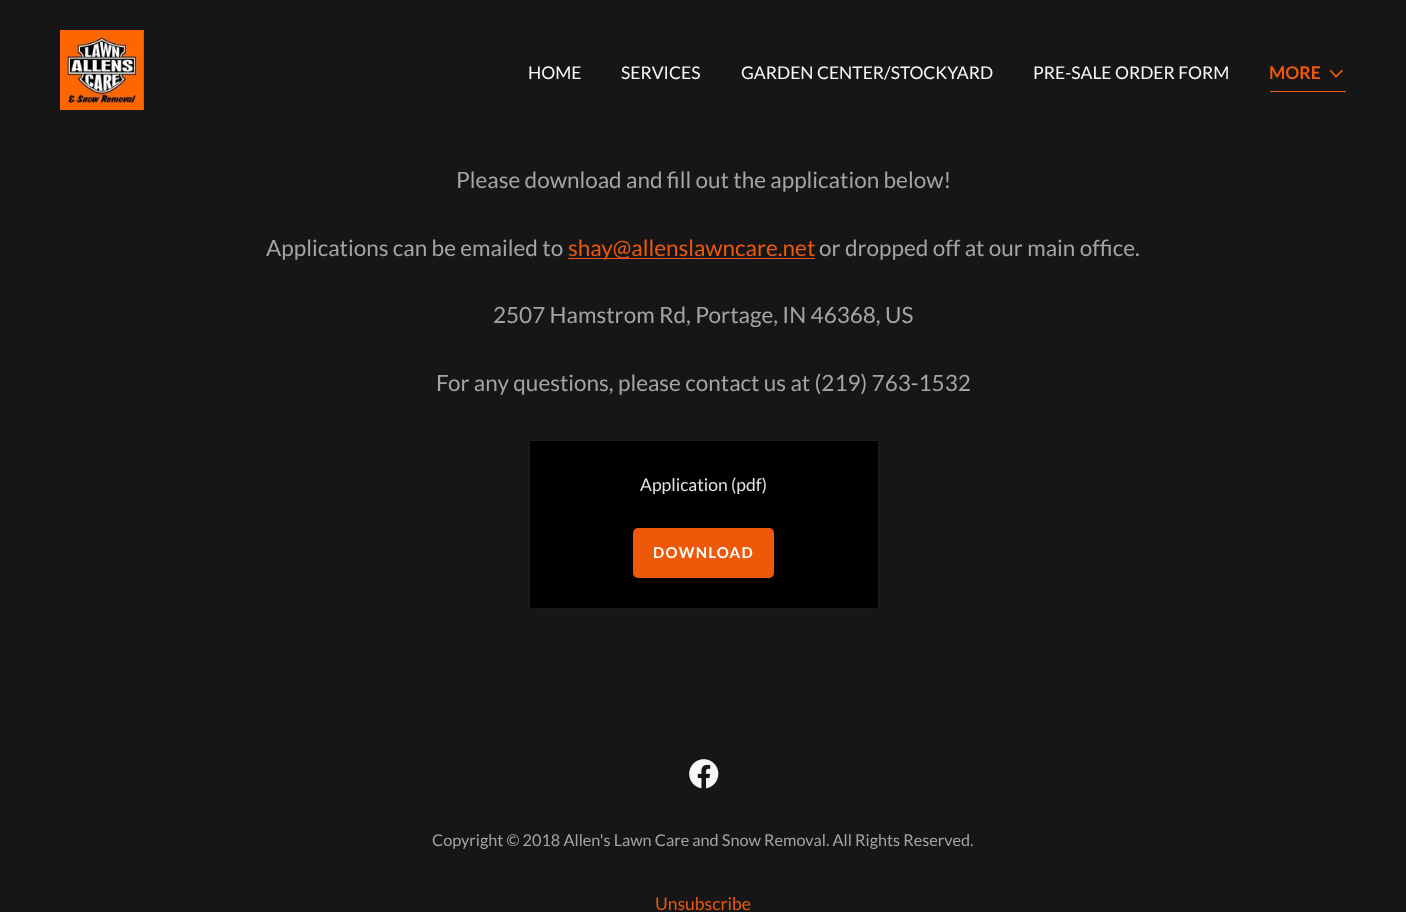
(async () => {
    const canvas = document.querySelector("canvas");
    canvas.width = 1406;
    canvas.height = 912;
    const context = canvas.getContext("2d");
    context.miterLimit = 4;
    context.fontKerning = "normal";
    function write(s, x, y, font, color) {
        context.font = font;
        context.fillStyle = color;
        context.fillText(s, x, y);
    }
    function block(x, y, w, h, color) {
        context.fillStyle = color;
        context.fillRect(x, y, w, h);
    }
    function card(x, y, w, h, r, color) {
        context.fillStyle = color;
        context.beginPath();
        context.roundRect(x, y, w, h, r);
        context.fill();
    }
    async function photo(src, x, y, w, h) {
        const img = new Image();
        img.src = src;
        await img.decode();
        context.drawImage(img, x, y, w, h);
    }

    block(0, 0, 1406, 912, "rgb(22, 22, 22)");
    await photo("media/1.png", 60, 30, 84, 80);
    write("HOME", 528, 79, "17.5px Lato", "rgb(247, 247, 247)");
    write("SERVICES", 621, 79, "17.5px Lato", "rgb(247, 247, 247)");
    write("GARDEN CENTER/STOCKYARD", 741, 79, "17.5px Lato", "rgb(247, 247, 247)");
    write("PRE-SALE ORDER FORM", 1033, 79, "17.5px Lato", "rgb(247, 247, 247)");
    block(1270, 91, 76, 1, "rgb(237, 89, 9)");
    write("MORE", 1269, 79, "bold 17.5px Lato", "rgb(237, 89, 9)");
    await photo("media/2.png", 1329, 69, 14, 9);
    write("Please download and fill out the application below!", 456, 188, "22.5px Lato", "rgb(164, 164, 164)");
    write("Applications can be emailed to", 266, 256, "22.5px Lato", "rgb(164, 164, 164)");
    block(568, 258, 247, 1, "rgb(237, 89, 9)");
    write("shay@allenslawncare.net", 568, 256, "22.5px Lato", "rgb(237, 89, 9)");
    write("or dropped off at our main office.", 819, 256, "22.5px Lato", "rgb(164, 164, 164)");
    write("2507 Hamstrom Rd, Portage, IN 46368, US", 493, 323, "22.5px Lato", "rgb(164, 164, 164)");
    write("For any questions, please contact us at (219) 763-1532", 436, 391, "22.5px Lato", "rgb(164, 164, 164)");
    context.fillStyle = "rgb(0, 0, 0)";
    context.beginPath();
    context.rect(529.5, 440.5, 349, 168);
    context.fill();
    context.strokeStyle = "rgb(27, 27, 27)";
    context.stroke();
    write("Application (pdf)", 640, 491, "17.5px Lato", "rgb(226, 226, 226)");
    card(633, 528, 141, 50, 5, "rgb(237, 89, 9)");
    context.letterSpacing = "1.25px";
    write("DOWNLOAD", 653, 558, "bold 15px Lato", "rgb(255, 255, 255)");
    await photo("media/3.png", 689, 759, 30, 30);
    context.letterSpacing = "0px";
    write("Copyright © 2018 Allen's Lawn Care and Snow Removal. All Rights Reserved.", 432, 846, "16.25px Lato", "rgb(164, 164, 164)");
    write("Unsubscribe", 655, 910, "17.5px Lato", "rgb(237, 89, 9)");
})();
